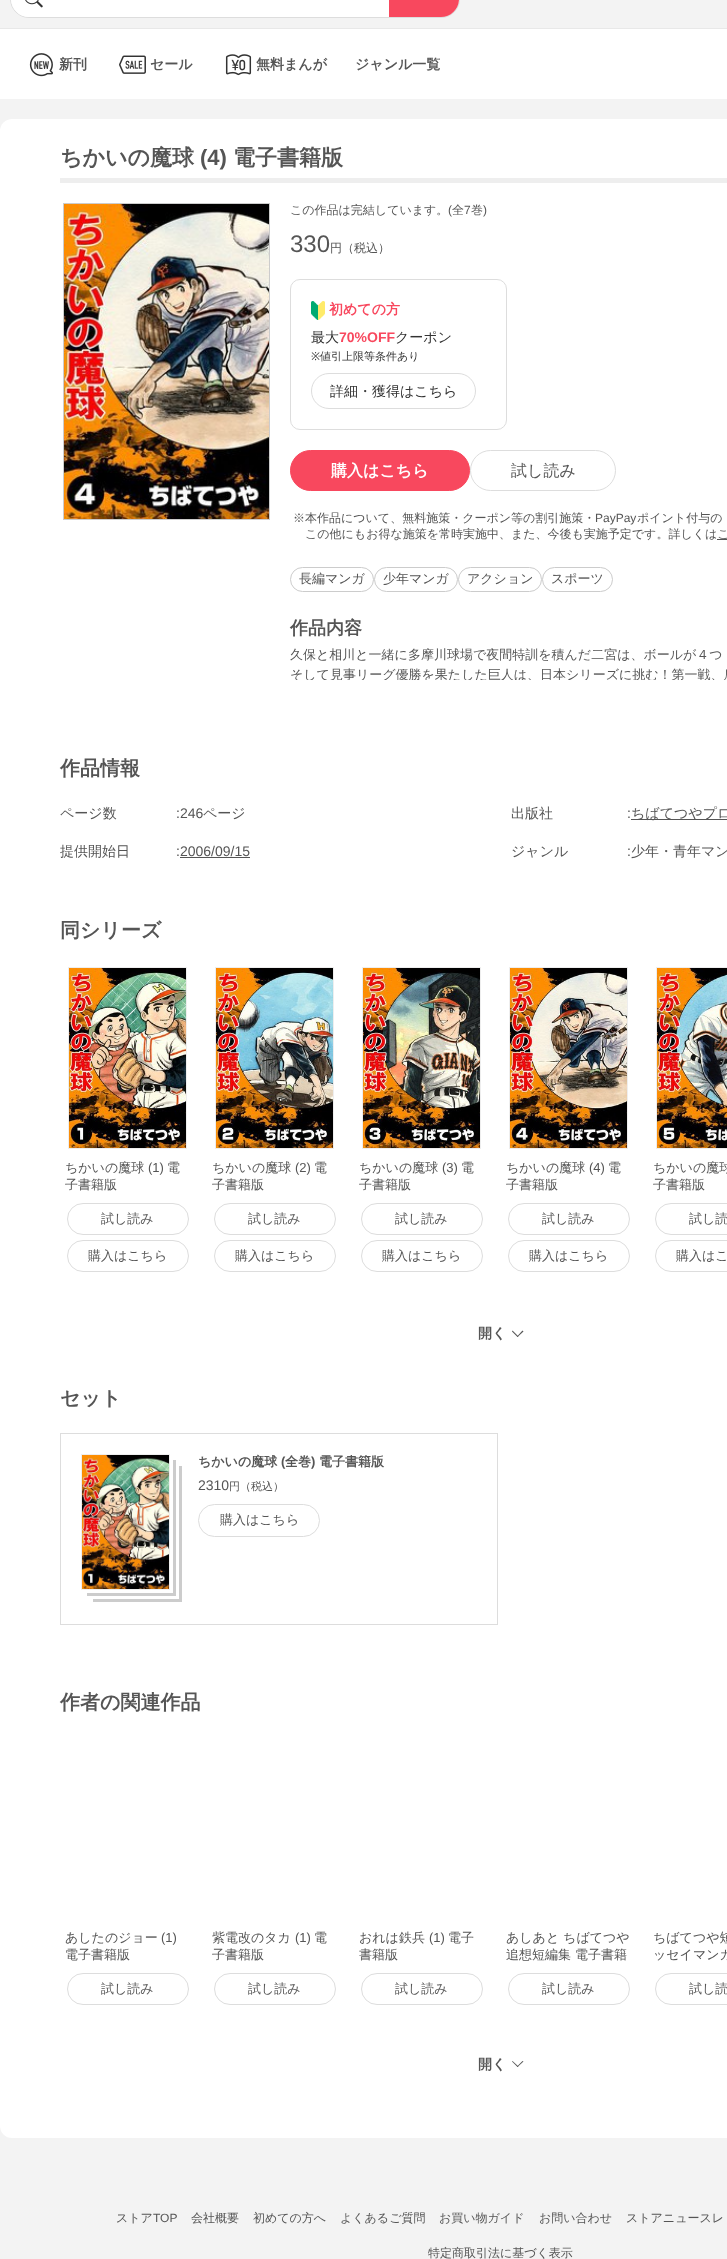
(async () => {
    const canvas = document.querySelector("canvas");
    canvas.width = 727;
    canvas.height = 2259;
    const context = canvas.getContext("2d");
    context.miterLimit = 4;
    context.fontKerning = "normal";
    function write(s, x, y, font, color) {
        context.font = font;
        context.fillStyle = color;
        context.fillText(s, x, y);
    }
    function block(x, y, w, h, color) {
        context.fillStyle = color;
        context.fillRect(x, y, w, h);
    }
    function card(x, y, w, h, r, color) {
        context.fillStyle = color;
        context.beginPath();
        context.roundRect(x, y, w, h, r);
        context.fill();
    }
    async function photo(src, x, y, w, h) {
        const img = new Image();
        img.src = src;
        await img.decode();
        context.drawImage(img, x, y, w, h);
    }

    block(0, 0, 727, 2259, "rgb(255, 255, 255)");
    block(0, 0, 727, 28, "rgb(243, 243, 243)");
    block(0, 28, 727, 1, "rgb(232, 232, 232)");
    context.beginPath();
    context.roundRect(10.5, -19.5, 449, 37, 18.5);
    context.strokeStyle = "rgb(221, 221, 221)";
    context.stroke();
    context.fillStyle = "rgb(255, 255, 255)";
    context.beginPath();
    context.moveTo(29, -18);
    context.lineTo(401, -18);
    context.lineTo(401, 17);
    context.lineTo(29, 17);
    context.bezierCurveTo(19, 17, 11, 9, 11, -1);
    context.lineTo(11, 0);
    context.bezierCurveTo(11, -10, 19, -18, 29, -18);
    context.closePath();
    context.fill();
    context.fillStyle = "rgb(248, 72, 94)";
    context.beginPath();
    context.moveTo(389, -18);
    context.lineTo(441, -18);
    context.bezierCurveTo(451, -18, 459, -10, 459, 0);
    context.lineTo(459, -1);
    context.bezierCurveTo(459, 9, 451, 17, 441, 17);
    context.lineTo(389, 17);
    context.closePath();
    context.fill();
    await photo("media/1.png", 25, 0, 18, 8);
    await photo("media/2.png", 29, 53, 24, 24);
    write("新刊", 59, 69, "bold 14px WenQuanYi Zen Hei", "rgb(85, 85, 85)");
    await photo("media/3.png", 119, 55, 27, 19);
    write("セール", 150, 69, "bold 14px WenQuanYi Zen Hei", "rgb(85, 85, 85)");
    await photo("media/4.png", 225, 54, 27, 22);
    write("無料まんが", 256, 69, "bold 14px WenQuanYi Zen Hei", "rgb(85, 85, 85)");
    write("ジャンル一覧", 355, 69, "bold 14px WenQuanYi Zen Hei", "rgb(85, 85, 85)");
    block(0, 99, 727, 2160, "rgb(243, 243, 243)");
    card(0, 119, 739, 2019, 12, "rgb(255, 255, 255)");
    block(60, 178, 667, 5, "rgb(238, 238, 238)");
    write("ちかいの魔球", 60, 165, "bold 22px WenQuanYi Zen Hei", "rgb(85, 85, 85)");
    write("(4)", 200, 165, "bold 22px Liberation Sans", "rgb(85, 85, 85)");
    write("電子書籍版", 233, 165, "bold 22px WenQuanYi Zen Hei", "rgb(85, 85, 85)");
    context.strokeStyle = "rgb(204, 204, 204)";
    context.strokeRect(63.5, 203.5, 206, 316);
    await photo("media/5.png", 64, 204, 205, 315);
    write("この作品は完結しています。", 290, 214, "500 12px WenQuanYi Zen Hei", "rgb(85, 85, 85)");
    write("(", 448, 214, "12px Liberation Sans", "rgb(85, 85, 85)");
    write("全", 452, 214, "500 12px WenQuanYi Zen Hei", "rgb(85, 85, 85)");
    write("7", 464, 214, "12px Liberation Sans", "rgb(85, 85, 85)");
    write("巻", 471, 214, "500 12px WenQuanYi Zen Hei", "rgb(85, 85, 85)");
    write(")", 483, 214, "12px Liberation Sans", "rgb(85, 85, 85)");
    write("330", 290, 252, "24px Liberation Sans", "rgb(85, 85, 85)");
    write("円（税込）", 330, 252, "500 12px WenQuanYi Zen Hei", "rgb(85, 85, 85)");
    context.beginPath();
    context.roundRect(290.5, 279.5, 216, 150, 9.5);
    context.strokeStyle = "rgb(221, 221, 221)";
    context.stroke();
    await photo("media/6.png", 311, 301, 14, 19);
    write("初めての方", 329, 314, "bold 14px WenQuanYi Zen Hei", "rgb(248, 72, 94)");
    write("最大", 311, 342, "500 14px WenQuanYi Zen Hei", "rgb(51, 51, 51)");
    write("70%OFF", 339, 342, "bold 14px Liberation Sans", "rgb(248, 72, 94)");
    write("クーポン", 395, 342, "500 14px WenQuanYi Zen Hei", "rgb(51, 51, 51)");
    write("※", 311, 360, "11px Noto Sans", "rgb(51, 51, 51)");
    write("値引上限等条件あり", 320, 360, "500 11px WenQuanYi Zen Hei", "rgb(51, 51, 51)");
    context.beginPath();
    context.roundRect(311.5, 373.5, 164, 35, 17.5);
    context.stroke();
    write("詳細・獲得はこちら", 330, 396, "500 14px WenQuanYi Zen Hei", "rgb(51, 51, 51)");
    context.fillStyle = "rgb(248, 72, 94)";
    context.beginPath();
    context.roundRect(290.5, 450.5, 179, 40, 20);
    context.fill();
    context.strokeStyle = "rgb(248, 72, 94)";
    context.stroke();
    write("購入はこちら", 331, 476, "bold 16px WenQuanYi Zen Hei", "rgb(255, 255, 255)");
    context.beginPath();
    context.roundRect(470.5, 450.5, 145, 40, 20);
    context.strokeStyle = "rgb(221, 221, 221)";
    context.stroke();
    write("試し読み", 511, 476, "500 16px WenQuanYi Zen Hei", "rgb(85, 85, 85)");
    write("※本作品について、無料施策・クーポン等の割引施策・", 293, 522, "500 12px WenQuanYi Zen Hei", "rgb(85, 85, 85)");
    write("PayPay", 595, 522, "12px Liberation Sans", "rgb(85, 85, 85)");
    write("ポイント付与の", 637, 522, "500 12px WenQuanYi Zen Hei", "rgb(85, 85, 85)");
    write("この他にもお得な施策を常時実施中、また、今後も実施予定です。詳しくはこ", 305, 538, "500 12px WenQuanYi Zen Hei", "rgb(85, 85, 85)");
    block(717, 539, 10, 1, "rgb(85, 85, 85)");
    context.beginPath();
    context.roundRect(290.5, 567.5, 83, 24, 12);
    context.strokeStyle = "rgb(204, 204, 204)";
    context.stroke();
    write("長編マンガ", 299, 583, "500 13px WenQuanYi Zen Hei", "rgb(85, 85, 85)");
    context.beginPath();
    context.roundRect(374.5, 567.5, 83, 24, 12);
    context.stroke();
    write("少年マンガ", 383, 583, "500 13px WenQuanYi Zen Hei", "rgb(85, 85, 85)");
    context.beginPath();
    context.roundRect(458.5, 567.5, 83, 24, 12);
    context.stroke();
    write("アクション", 467, 583, "500 13px WenQuanYi Zen Hei", "rgb(85, 85, 85)");
    context.beginPath();
    context.roundRect(542.5, 567.5, 70, 24, 12);
    context.stroke();
    write("スポーツ", 551, 583, "500 13px WenQuanYi Zen Hei", "rgb(85, 85, 85)");
    write("作品内容", 290, 634, "bold 18px WenQuanYi Zen Hei", "rgb(85, 85, 85)");
    write("久保と相川と一緒に多摩川球場で夜間特訓を積んだ二宮は、ボールが４つ", 290, 659, "500 13px WenQuanYi Zen Hei", "rgb(85, 85, 85)");
    write("そして見事リーグ優勝を果たした巨人は、日本シリーズに挑む！第一戦、肩", 290, 679, "500 13px WenQuanYi Zen Hei", "rgb(85, 85, 85)");
    block(296, 680, 429, 2, "rgb(255, 255, 255)");
    write("作品情報", 60, 775, "bold 20px WenQuanYi Zen Hei", "rgb(85, 85, 85)");
    write("ページ数", 60, 818, "500 14px WenQuanYi Zen Hei", "rgb(85, 85, 85)");
    write(":246", 176, 818, "14px Liberation Sans", "rgb(85, 85, 85)");
    write("ページ", 203, 818, "500 14px WenQuanYi Zen Hei", "rgb(85, 85, 85)");
    write("出版社", 511, 818, "500 14px WenQuanYi Zen Hei", "rgb(85, 85, 85)");
    write(":", 627, 818, "14px Liberation Sans", "rgb(85, 85, 85)");
    block(631, 819, 96, 1, "rgb(85, 85, 85)");
    write("ちばてつやプロ", 631, 818, "500 14px WenQuanYi Zen Hei", "rgb(85, 85, 85)");
    write("提供開始日", 60, 856, "500 14px WenQuanYi Zen Hei", "rgb(85, 85, 85)");
    write(":2006/09/15", 176, 856, "14px Liberation Sans", "rgb(85, 85, 85)");
    block(180, 857, 70, 1, "rgb(85, 85, 85)");
    write("ジャンル", 511, 856, "500 14px WenQuanYi Zen Hei", "rgb(85, 85, 85)");
    write(":", 627, 856, "14px Liberation Sans", "rgb(85, 85, 85)");
    write("少年・青年マン", 631, 856, "500 14px WenQuanYi Zen Hei", "rgb(85, 85, 85)");
    write("同シリーズ", 60, 937, "bold 20px WenQuanYi Zen Hei", "rgb(85, 85, 85)");
    context.strokeStyle = "rgb(238, 238, 238)";
    context.strokeRect(68.5, 967.5, 118, 181);
    await photo("media/7.png", 69, 968, 117, 180);
    write("ちかいの魔球", 65, 1172, "500 13px WenQuanYi Zen Hei", "rgb(85, 85, 85)");
    write("(1)", 148, 1172, "13px Liberation Sans", "rgb(85, 85, 85)");
    write("電", 167, 1172, "500 13px WenQuanYi Zen Hei", "rgb(85, 85, 85)");
    write("子書籍版", 65, 1189, "500 13px WenQuanYi Zen Hei", "rgb(85, 85, 85)");
    context.beginPath();
    context.roundRect(67.5, 1203.5, 121, 31, 15.5);
    context.strokeStyle = "rgb(221, 221, 221)";
    context.stroke();
    write("試し読み", 101, 1223, "500 13px WenQuanYi Zen Hei", "rgb(85, 85, 85)");
    context.beginPath();
    context.roundRect(67.5, 1240.5, 121, 31, 15.5);
    context.stroke();
    write("購入はこちら", 88, 1260, "500 13px WenQuanYi Zen Hei", "rgb(85, 85, 85)");
    context.strokeStyle = "rgb(238, 238, 238)";
    context.strokeRect(215.5, 967.5, 118, 181);
    await photo("media/8.png", 216, 968, 117, 180);
    write("ちかいの魔球", 212, 1172, "500 13px WenQuanYi Zen Hei", "rgb(85, 85, 85)");
    write("(2)", 295, 1172, "13px Liberation Sans", "rgb(85, 85, 85)");
    write("電", 314, 1172, "500 13px WenQuanYi Zen Hei", "rgb(85, 85, 85)");
    write("子書籍版", 212, 1189, "500 13px WenQuanYi Zen Hei", "rgb(85, 85, 85)");
    context.beginPath();
    context.roundRect(214.5, 1203.5, 121, 31, 15.5);
    context.strokeStyle = "rgb(221, 221, 221)";
    context.stroke();
    write("試し読み", 248, 1223, "500 13px WenQuanYi Zen Hei", "rgb(85, 85, 85)");
    context.beginPath();
    context.roundRect(214.5, 1240.5, 121, 31, 15.5);
    context.stroke();
    write("購入はこちら", 235, 1260, "500 13px WenQuanYi Zen Hei", "rgb(85, 85, 85)");
    context.strokeStyle = "rgb(238, 238, 238)";
    context.strokeRect(362.5, 967.5, 118, 181);
    await photo("media/9.png", 363, 968, 117, 180);
    write("ちかいの魔球", 359, 1172, "500 13px WenQuanYi Zen Hei", "rgb(85, 85, 85)");
    write("(3)", 442, 1172, "13px Liberation Sans", "rgb(85, 85, 85)");
    write("電", 461, 1172, "500 13px WenQuanYi Zen Hei", "rgb(85, 85, 85)");
    write("子書籍版", 359, 1189, "500 13px WenQuanYi Zen Hei", "rgb(85, 85, 85)");
    context.beginPath();
    context.roundRect(361.5, 1203.5, 121, 31, 15.5);
    context.strokeStyle = "rgb(221, 221, 221)";
    context.stroke();
    write("試し読み", 395, 1223, "500 13px WenQuanYi Zen Hei", "rgb(85, 85, 85)");
    context.beginPath();
    context.roundRect(361.5, 1240.5, 121, 31, 15.5);
    context.stroke();
    write("購入はこちら", 382, 1260, "500 13px WenQuanYi Zen Hei", "rgb(85, 85, 85)");
    context.strokeStyle = "rgb(238, 238, 238)";
    context.strokeRect(509.5, 967.5, 118, 181);
    await photo("media/10.png", 510, 968, 117, 180);
    write("ちかいの魔球", 506, 1172, "500 13px WenQuanYi Zen Hei", "rgb(85, 85, 85)");
    write("(4)", 589, 1172, "13px Liberation Sans", "rgb(85, 85, 85)");
    write("電", 608, 1172, "500 13px WenQuanYi Zen Hei", "rgb(85, 85, 85)");
    write("子書籍版", 506, 1189, "500 13px WenQuanYi Zen Hei", "rgb(85, 85, 85)");
    context.beginPath();
    context.roundRect(508.5, 1203.5, 121, 31, 15.5);
    context.strokeStyle = "rgb(221, 221, 221)";
    context.stroke();
    write("試し読み", 542, 1223, "500 13px WenQuanYi Zen Hei", "rgb(85, 85, 85)");
    context.beginPath();
    context.roundRect(508.5, 1240.5, 121, 31, 15.5);
    context.stroke();
    write("購入はこちら", 529, 1260, "500 13px WenQuanYi Zen Hei", "rgb(85, 85, 85)");
    context.strokeStyle = "rgb(238, 238, 238)";
    context.strokeRect(656.5, 967.5, 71, 181);
    await photo("media/11.png", 657, 968, 70, 180);
    write("ちかいの魔球", 653, 1172, "500 13px WenQuanYi Zen Hei", "rgb(85, 85, 85)");
    write("子書籍版", 653, 1189, "500 13px WenQuanYi Zen Hei", "rgb(85, 85, 85)");
    context.beginPath();
    context.roundRect(655.5, 1203.5, 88, 31, 15.5);
    context.strokeStyle = "rgb(221, 221, 221)";
    context.stroke();
    write("試し読", 689, 1223, "500 13px WenQuanYi Zen Hei", "rgb(85, 85, 85)");
    context.beginPath();
    context.roundRect(655.5, 1240.5, 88, 31, 15.5);
    context.stroke();
    write("購入はこ", 676, 1260, "500 13px WenQuanYi Zen Hei", "rgb(85, 85, 85)");
    write("開く", 478, 1338, "bold 14px WenQuanYi Zen Hei", "rgb(85, 85, 85)");
    context.beginPath();
    context.moveTo(523.5, 1331.5);
    context.lineTo(517.5, 1337);
    context.lineTo(517, 1336.5);
    context.lineTo(522.5, 1330.5);
    context.closePath();
    context.fill();
    context.beginPath();
    context.moveTo(518.5, 1336.5);
    context.lineTo(517.5, 1337);
    context.lineTo(512, 1331.5);
    context.lineTo(512.5, 1330.5);
    context.closePath();
    context.fill();
    write("セット", 60, 1405, "bold 20px WenQuanYi Zen Hei", "rgb(85, 85, 85)");
    context.strokeRect(60.5, 1433.5, 437, 191);
    context.fillStyle = "rgb(204, 204, 204)";
    context.beginPath();
    context.moveTo(93, 1590);
    context.lineTo(93, 1602);
    context.lineTo(182, 1602);
    context.lineTo(182, 1466);
    context.lineTo(170, 1466);
    context.lineTo(170, 1590);
    context.closePath();
    context.fill();
    context.fillStyle = "rgb(255, 255, 255)";
    context.beginPath();
    context.moveTo(90, 1590);
    context.lineTo(90, 1599);
    context.lineTo(179, 1599);
    context.lineTo(179, 1463);
    context.lineTo(170, 1463);
    context.lineTo(170, 1590);
    context.closePath();
    context.fill();
    context.fillStyle = "rgb(204, 204, 204)";
    context.beginPath();
    context.moveTo(87, 1590);
    context.lineTo(87, 1596);
    context.lineTo(176, 1596);
    context.lineTo(176, 1460);
    context.lineTo(170, 1460);
    context.lineTo(170, 1590);
    context.closePath();
    context.fill();
    context.fillStyle = "rgb(255, 255, 255)";
    context.beginPath();
    context.moveTo(84, 1590);
    context.lineTo(84, 1593);
    context.lineTo(173, 1593);
    context.lineTo(173, 1457);
    context.lineTo(170, 1457);
    context.lineTo(170, 1590);
    context.closePath();
    context.fill();
    context.strokeStyle = "rgb(238, 238, 238)";
    context.strokeRect(81.5, 1454.5, 88, 135);
    await photo("media/12.png", 82, 1455, 87, 134);
    write("ちかいの魔球", 198, 1466, "bold 13px WenQuanYi Zen Hei", "rgb(85, 85, 85)");
    write("(", 281, 1466, "bold 13px Liberation Sans", "rgb(85, 85, 85)");
    write("全巻", 285, 1466, "bold 13px WenQuanYi Zen Hei", "rgb(85, 85, 85)");
    write(")", 311, 1466, "bold 13px Liberation Sans", "rgb(85, 85, 85)");
    write("電子書籍版", 319, 1466, "bold 13px WenQuanYi Zen Hei", "rgb(85, 85, 85)");
    write("2310", 198, 1490, "14px Liberation Sans", "rgb(85, 85, 85)");
    write("円（税込）", 229, 1490, "500 11px WenQuanYi Zen Hei", "rgb(85, 85, 85)");
    context.beginPath();
    context.roundRect(198.5, 1504.5, 121, 32, 16);
    context.strokeStyle = "rgb(221, 221, 221)";
    context.stroke();
    write("購入はこちら", 220, 1524, "500 13px WenQuanYi Zen Hei", "rgb(85, 85, 85)");
    write("作者の関連作品", 60, 1709, "bold 20px WenQuanYi Zen Hei", "rgb(85, 85, 85)");
    write("あしたのジョー", 65, 1942, "500 13px WenQuanYi Zen Hei", "rgb(85, 85, 85)");
    write("(1)", 161, 1942, "13px Liberation Sans", "rgb(85, 85, 85)");
    write("電子書籍版", 65, 1959, "500 13px WenQuanYi Zen Hei", "rgb(85, 85, 85)");
    context.beginPath();
    context.roundRect(67.5, 1973.5, 121, 31, 15.5);
    context.stroke();
    write("試し読み", 101, 1993, "500 13px WenQuanYi Zen Hei", "rgb(85, 85, 85)");
    write("紫電改のタカ", 212, 1942, "500 13px WenQuanYi Zen Hei", "rgb(85, 85, 85)");
    write("(1)", 295, 1942, "13px Liberation Sans", "rgb(85, 85, 85)");
    write("電", 314, 1942, "500 13px WenQuanYi Zen Hei", "rgb(85, 85, 85)");
    write("子書籍版", 212, 1959, "500 13px WenQuanYi Zen Hei", "rgb(85, 85, 85)");
    context.beginPath();
    context.roundRect(214.5, 1973.5, 121, 31, 15.5);
    context.stroke();
    write("試し読み", 248, 1993, "500 13px WenQuanYi Zen Hei", "rgb(85, 85, 85)");
    write("おれは鉄兵", 359, 1942, "500 13px WenQuanYi Zen Hei", "rgb(85, 85, 85)");
    write("(1)", 429, 1942, "13px Liberation Sans", "rgb(85, 85, 85)");
    write("電子", 448, 1942, "500 13px WenQuanYi Zen Hei", "rgb(85, 85, 85)");
    write("書籍版", 359, 1959, "500 13px WenQuanYi Zen Hei", "rgb(85, 85, 85)");
    context.beginPath();
    context.roundRect(361.5, 1973.5, 121, 31, 15.5);
    context.stroke();
    write("試し読み", 395, 1993, "500 13px WenQuanYi Zen Hei", "rgb(85, 85, 85)");
    write("あしあと ちばてつや", 506, 1942, "500 13px WenQuanYi Zen Hei", "rgb(85, 85, 85)");
    write("追想短編集 電子書籍", 506, 1959, "500 13px WenQuanYi Zen Hei", "rgb(85, 85, 85)");
    context.beginPath();
    context.roundRect(508.5, 1973.5, 121, 31, 15.5);
    context.stroke();
    write("試し読み", 542, 1993, "500 13px WenQuanYi Zen Hei", "rgb(85, 85, 85)");
    write("ちばてつや短", 653, 1942, "500 13px WenQuanYi Zen Hei", "rgb(85, 85, 85)");
    write("ッセイマンガ", 653, 1959, "500 13px WenQuanYi Zen Hei", "rgb(85, 85, 85)");
    context.beginPath();
    context.roundRect(655.5, 1973.5, 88, 31, 15.5);
    context.stroke();
    write("試し読", 689, 1993, "500 13px WenQuanYi Zen Hei", "rgb(85, 85, 85)");
    write("開く", 478, 2069, "bold 14px WenQuanYi Zen Hei", "rgb(85, 85, 85)");
    context.beginPath();
    context.moveTo(523.5, 2061.5);
    context.lineTo(517.5, 2067);
    context.lineTo(517, 2066.5);
    context.lineTo(522.5, 2061);
    context.closePath();
    context.fill();
    context.beginPath();
    context.moveTo(518.5, 2066.5);
    context.lineTo(517.5, 2067);
    context.lineTo(512, 2061.5);
    context.lineTo(512.5, 2061);
    context.closePath();
    context.fill();
    write("ストア", 116, 2222, "500 12px WenQuanYi Zen Hei", "rgb(85, 85, 85)");
    write("TOP", 153, 2222, "12px Liberation Sans", "rgb(85, 85, 85)");
    write("会社概要", 191, 2222, "500 12px WenQuanYi Zen Hei", "rgb(85, 85, 85)");
    write("初めての方へ", 253, 2222, "500 12px WenQuanYi Zen Hei", "rgb(85, 85, 85)");
    write("よくあるご質問", 340, 2222, "500 12px WenQuanYi Zen Hei", "rgb(85, 85, 85)");
    write("お買い物ガイド", 439, 2222, "500 12px WenQuanYi Zen Hei", "rgb(85, 85, 85)");
    write("お問い合わせ", 539, 2222, "500 12px WenQuanYi Zen Hei", "rgb(85, 85, 85)");
    write("ストアニュースレ", 626, 2222, "500 12px WenQuanYi Zen Hei", "rgb(85, 85, 85)");
    write("特定商取引法に基づく表示", 428, 2257, "500 12px WenQuanYi Zen Hei", "rgb(85, 85, 85)");
})();
